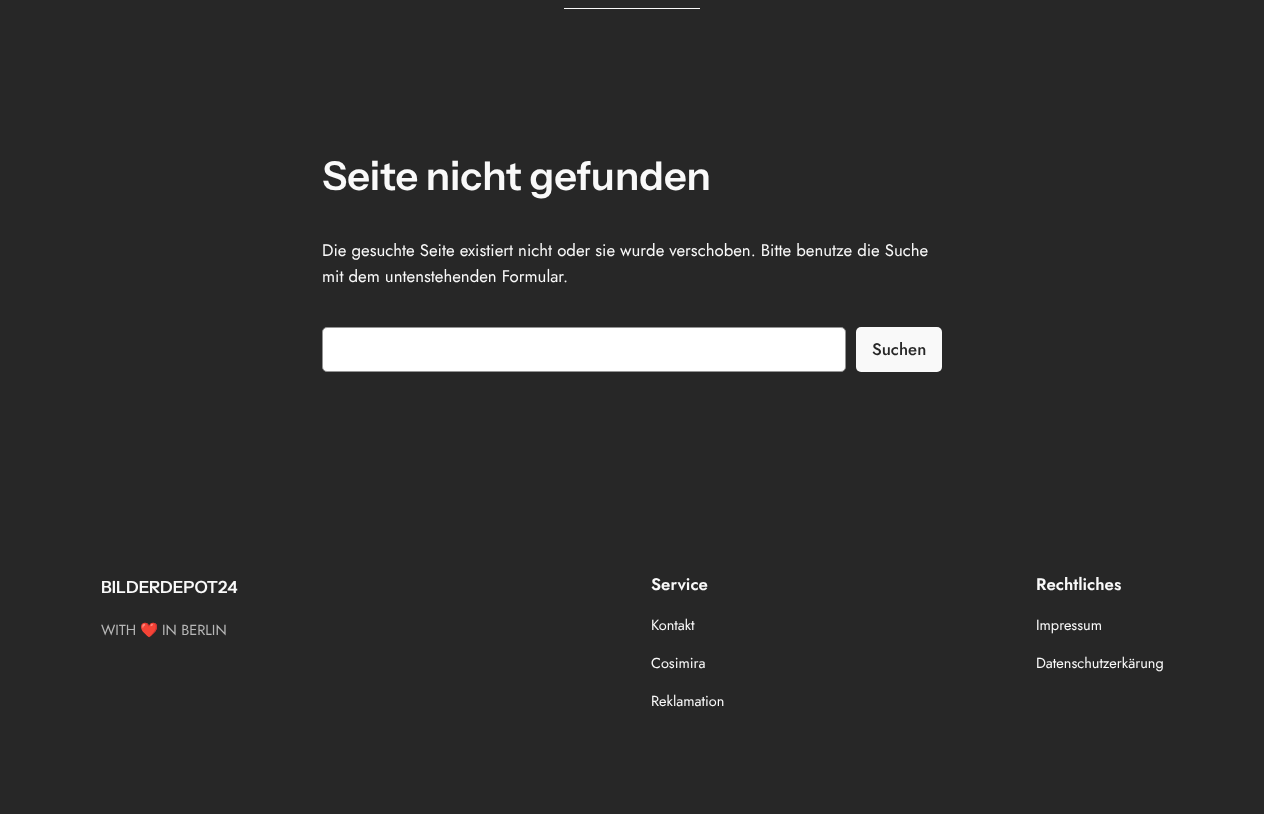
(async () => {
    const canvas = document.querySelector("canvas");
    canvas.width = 1264;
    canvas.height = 814;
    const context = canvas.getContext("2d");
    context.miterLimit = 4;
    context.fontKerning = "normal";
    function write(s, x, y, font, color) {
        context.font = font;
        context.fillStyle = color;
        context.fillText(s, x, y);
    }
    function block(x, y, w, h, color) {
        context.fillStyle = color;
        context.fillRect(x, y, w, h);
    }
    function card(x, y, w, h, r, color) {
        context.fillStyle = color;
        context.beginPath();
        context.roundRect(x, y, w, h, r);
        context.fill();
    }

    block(0, 0, 1264, 814, "rgb(39, 39, 39)");
    block(564, 8, 136, 1, "rgb(249, 249, 249)");
    write("Seite nicht gefunden", 322, 190, "600 39.75px Instrument Sans", "rgb(249, 249, 249)");
    write("Die gesuchte Seite existiert nicht oder sie wurde verschoben. Bitte benutze die Suche", 322, 256, "16.8px Jost", "rgb(249, 249, 249)");
    write("mit dem untenstehenden Formular.", 322, 282, "16.8px Jost", "rgb(249, 249, 249)");
    context.fillStyle = "rgb(255, 255, 255)";
    context.beginPath();
    context.roundRect(322.5, 327.5, 523, 44, 4.5);
    context.fill();
    context.strokeStyle = "rgb(148, 148, 148)";
    context.stroke();
    card(856, 327, 86, 45, 5, "rgb(249, 249, 249)");
    write("Suchen", 872, 355, "500 16.8px Jost", "rgb(39, 39, 39)");
    write("BILDERDEPOT24", 101, 593, "600 16.8px Instrument Sans", "rgb(249, 249, 249)");
    write("WITH", 101, 635, "14.5px Jost", "rgb(183, 183, 183)");
    write("❤️", 140, 635, "14.5px Noto Color Emoji", "rgb(183, 183, 183)");
    write("IN BERLIN", 162, 635, "14.5px Jost", "rgb(183, 183, 183)");
    write("Service", 651, 590, "600 16.8px Jost", "rgb(249, 249, 249)");
    write("Kontakt", 651, 630, "14.5px Jost", "rgb(249, 249, 249)");
    write("Cosimira", 651, 668, "14.5px Jost", "rgb(249, 249, 249)");
    write("Reklamation", 651, 706, "14.5px Jost", "rgb(249, 249, 249)");
    write("Rechtliches", 1036, 590, "600 16.8px Jost", "rgb(249, 249, 249)");
    write("Impressum", 1036, 630, "14.5px Jost", "rgb(249, 249, 249)");
    write("Datenschutzerkärung", 1036, 668, "14.5px Jost", "rgb(249, 249, 249)");
})();
